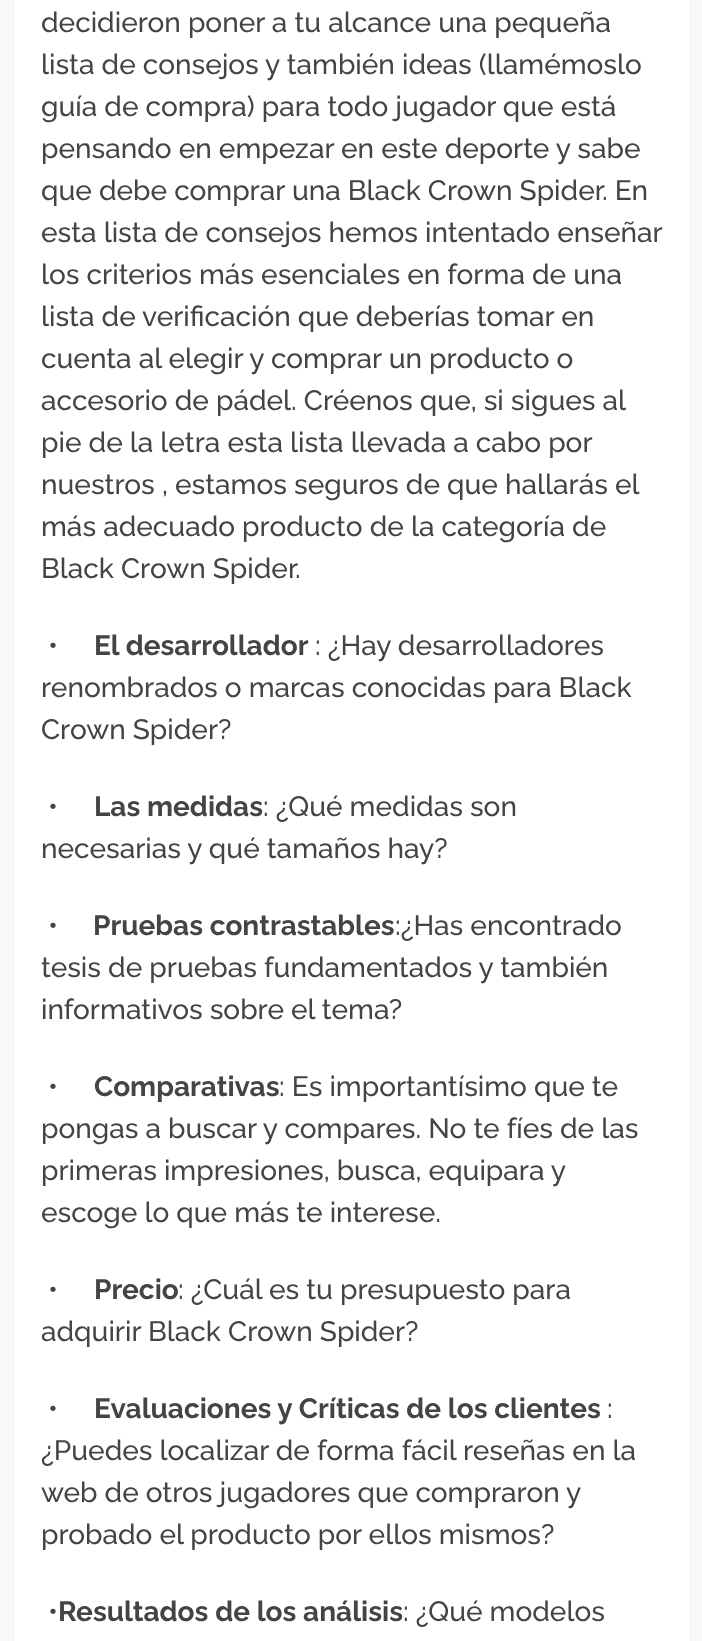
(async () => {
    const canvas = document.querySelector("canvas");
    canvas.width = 702;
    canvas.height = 1641;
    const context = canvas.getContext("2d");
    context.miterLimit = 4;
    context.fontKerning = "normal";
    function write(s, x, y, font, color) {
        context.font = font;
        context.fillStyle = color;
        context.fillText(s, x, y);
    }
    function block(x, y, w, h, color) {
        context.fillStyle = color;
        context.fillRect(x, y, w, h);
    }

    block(0, 0, 702, 1641, "rgb(249, 249, 249)");
    context.fillStyle = "rgba(50, 50, 50, 0.1)";
    context.filter = "blur(1px)";
    context.beginPath();
    context.rect(14, -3, 676, 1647);
    context.fill();
    context.filter = "none";
    block(14, 0, 676, 1641, "rgb(255, 255, 255)");
    write("decidieron poner a tu alcance una pequeña", 41, 32, "500 28px Raleway", "rgb(68, 68, 68)");
    write("lista de consejos y también ideas (llamémoslo", 41, 74, "500 28px Raleway", "rgb(68, 68, 68)");
    write("guía de compra) para todo jugador que está", 41, 116, "500 28px Raleway", "rgb(68, 68, 68)");
    write("pensando en empezar en este deporte y sabe", 41, 158, "500 28px Raleway", "rgb(68, 68, 68)");
    write("que debe comprar una Black Crown Spider. En", 41, 200, "500 28px Raleway", "rgb(68, 68, 68)");
    write("esta lista de consejos hemos intentado enseñar", 41, 242, "500 28px Raleway", "rgb(68, 68, 68)");
    write("los criterios más esenciales en forma de una", 41, 284, "500 28px Raleway", "rgb(68, 68, 68)");
    write("lista de verificación que deberías tomar en", 41, 326, "500 28px Raleway", "rgb(68, 68, 68)");
    write("cuenta al elegir y comprar un producto o", 41, 368, "500 28px Raleway", "rgb(68, 68, 68)");
    write("accesorio de pádel. Créenos que, si sigues al", 41, 410, "500 28px Raleway", "rgb(68, 68, 68)");
    write("pie de la letra esta lista llevada a cabo por", 41, 452, "500 28px Raleway", "rgb(68, 68, 68)");
    write("nuestros", 41, 494, "500 28px Raleway", "rgb(68, 68, 68)");
    write(", estamos seguros de que hallarás el", 162, 494, "500 28px Raleway", "rgb(68, 68, 68)");
    write("más adecuado producto de la categoría de", 41, 536, "500 28px Raleway", "rgb(68, 68, 68)");
    write("Black Crown Spider.", 41, 578, "500 28px Raleway", "rgb(68, 68, 68)");
    write("•", 48, 655, "500 28px Raleway", "rgb(68, 68, 68)");
    write("El desarrollador", 94, 655, "bold 28px Raleway", "rgb(68, 68, 68)");
    write(": ¿Hay desarrolladores", 315, 655, "500 28px Raleway", "rgb(68, 68, 68)");
    write("renombrados o marcas conocidas para Black", 41, 697, "500 28px Raleway", "rgb(68, 68, 68)");
    write("Crown Spider?", 41, 739, "500 28px Raleway", "rgb(68, 68, 68)");
    write("•", 48, 816, "500 28px Raleway", "rgb(68, 68, 68)");
    write("Las medidas", 94, 816, "bold 28px Raleway", "rgb(68, 68, 68)");
    write(": ¿Qué medidas son", 263, 816, "500 28px Raleway", "rgb(68, 68, 68)");
    write("necesarias y qué tamaños hay?", 41, 858, "500 28px Raleway", "rgb(68, 68, 68)");
    write("•", 48, 935, "500 28px Raleway", "rgb(68, 68, 68)");
    write("Pruebas contrastables", 93, 935, "bold 28px Raleway", "rgb(68, 68, 68)");
    write(":¿Has encontrado", 395, 935, "500 28px Raleway", "rgb(68, 68, 68)");
    write("tesis de pruebas fundamentados y también", 41, 977, "500 28px Raleway", "rgb(68, 68, 68)");
    write("informativos sobre el tema?", 41, 1019, "500 28px Raleway", "rgb(68, 68, 68)");
    write("•", 48, 1096, "500 28px Raleway", "rgb(68, 68, 68)");
    write("Comparativas", 94, 1096, "bold 28px Raleway", "rgb(68, 68, 68)");
    write(": Es importantísimo que te", 279, 1096, "500 28px Raleway", "rgb(68, 68, 68)");
    write("pongas a buscar y compares. No te fíes de las", 41, 1138, "500 28px Raleway", "rgb(68, 68, 68)");
    write("primeras impresiones, busca, equipara y", 41, 1180, "500 28px Raleway", "rgb(68, 68, 68)");
    write("escoge lo que más te interese.", 41, 1222, "500 28px Raleway", "rgb(68, 68, 68)");
    write("•", 48, 1299, "500 28px Raleway", "rgb(68, 68, 68)");
    write("Precio", 94, 1299, "bold 28px Raleway", "rgb(68, 68, 68)");
    write(": ¿Cuál es tu presupuesto para", 178, 1299, "500 28px Raleway", "rgb(68, 68, 68)");
    write("adquirir Black Crown Spider?", 41, 1341, "500 28px Raleway", "rgb(68, 68, 68)");
    write("•", 48, 1418, "500 28px Raleway", "rgb(68, 68, 68)");
    write("Evaluaciones y Críticas de los clientes", 94, 1418, "bold 28px Raleway", "rgb(68, 68, 68)");
    write(":", 607, 1418, "500 28px Raleway", "rgb(68, 68, 68)");
    write("¿Puedes localizar de forma fácil reseñas en la", 41, 1460, "500 28px Raleway", "rgb(68, 68, 68)");
    write("web de otros jugadores que compraron y", 41, 1502, "500 28px Raleway", "rgb(68, 68, 68)");
    write("probado el producto por ellos mismos?", 41, 1544, "500 28px Raleway", "rgb(68, 68, 68)");
    write("•", 48, 1621, "500 28px Raleway", "rgb(68, 68, 68)");
    write("Resultados de los análisis", 58, 1621, "bold 28px Raleway", "rgb(68, 68, 68)");
    write(": ¿Qué modelos", 403, 1621, "500 28px Raleway", "rgb(68, 68, 68)");
})();
